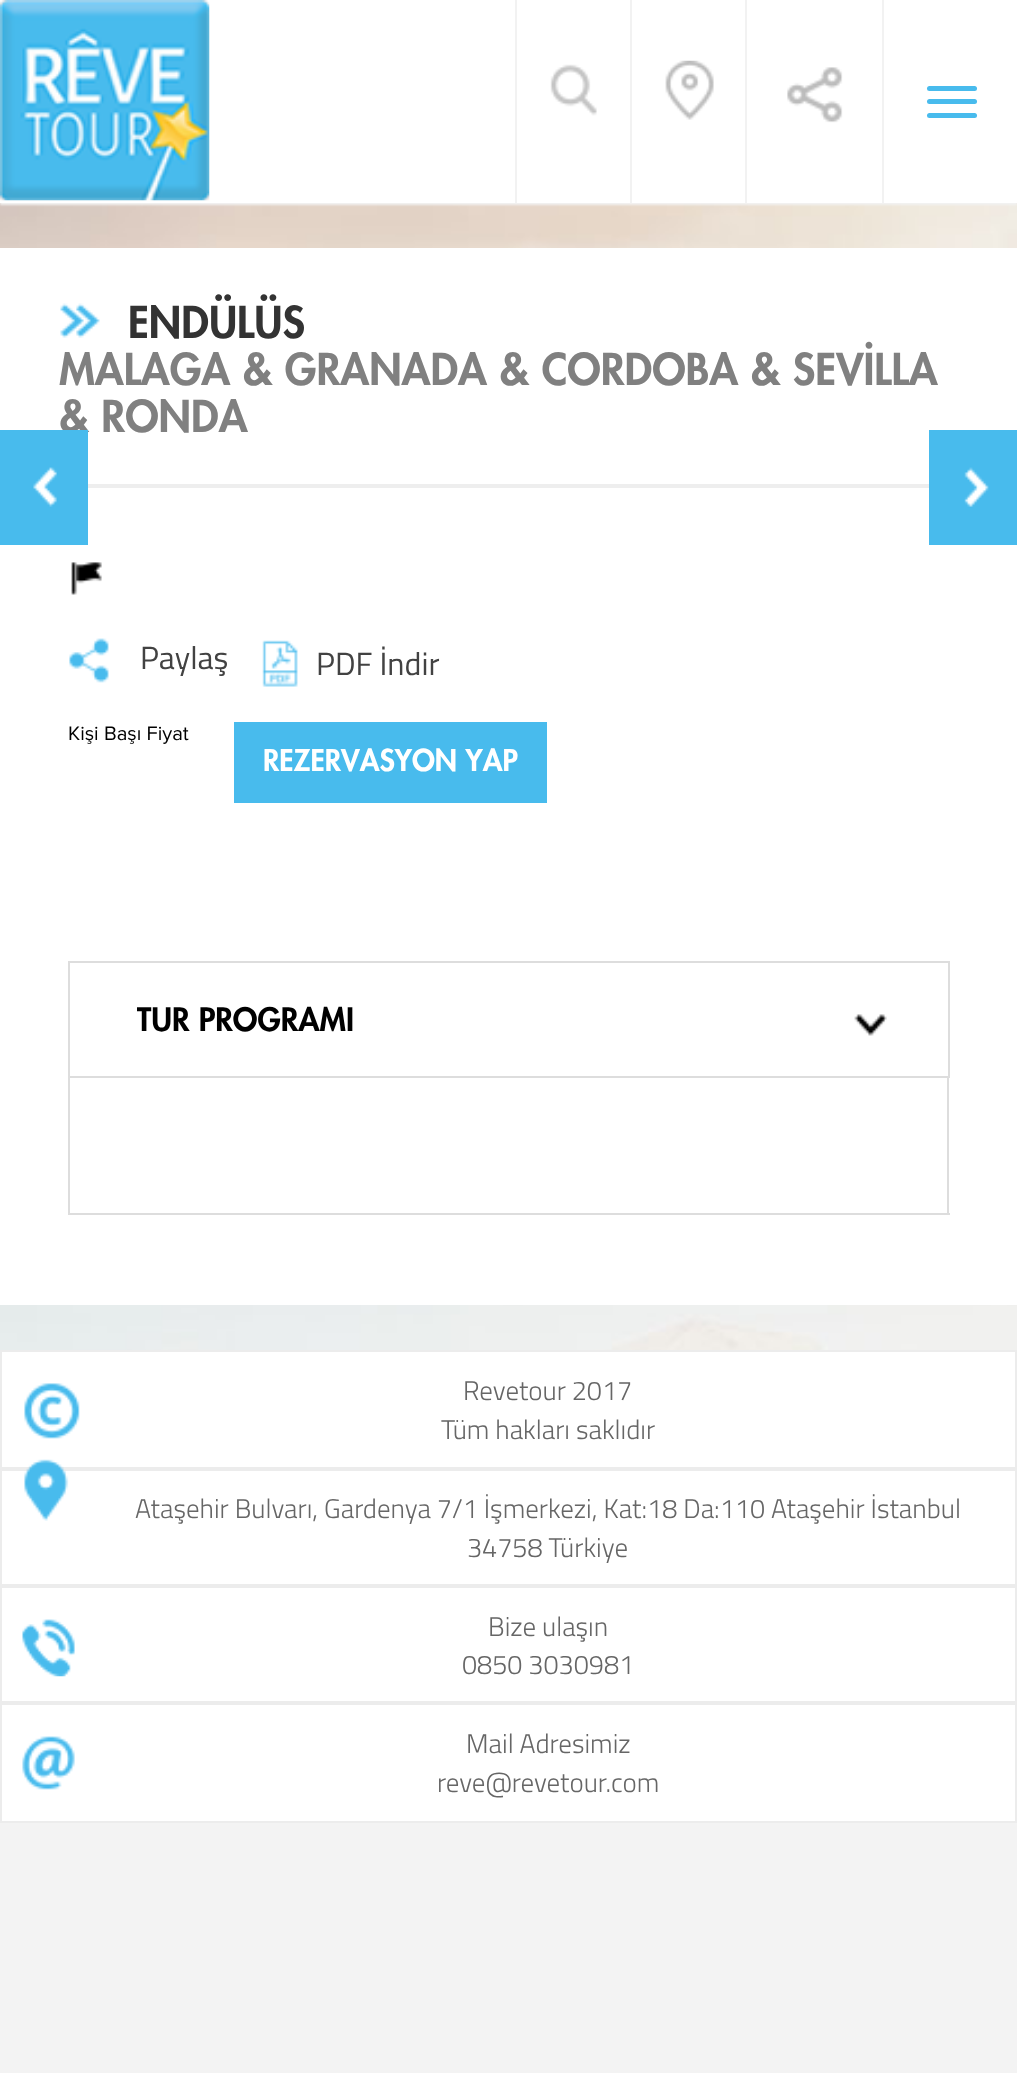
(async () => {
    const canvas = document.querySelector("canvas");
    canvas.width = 1017;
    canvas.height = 2073;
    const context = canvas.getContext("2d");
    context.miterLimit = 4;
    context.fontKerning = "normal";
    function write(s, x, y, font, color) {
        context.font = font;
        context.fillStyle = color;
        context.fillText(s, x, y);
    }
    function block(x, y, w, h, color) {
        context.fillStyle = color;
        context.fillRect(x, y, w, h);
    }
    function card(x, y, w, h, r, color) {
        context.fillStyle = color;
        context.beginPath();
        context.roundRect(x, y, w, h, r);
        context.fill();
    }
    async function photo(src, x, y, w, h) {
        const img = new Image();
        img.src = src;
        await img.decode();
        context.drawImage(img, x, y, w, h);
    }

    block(0, 0, 1017, 2073, "rgb(243, 243, 243)");
    block(0, 0, 1017, 203, "rgb(255, 255, 255)");
    await photo("media/5.png", 0, 203, 1017, 1147);
    context.save();
    context.beginPath();
    context.moveTo(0, 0);
    context.lineTo(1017, 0);
    context.lineTo(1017, 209);
    context.lineTo(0, 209);
    context.closePath();
    context.moveTo(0, 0);
    context.lineTo(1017, 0);
    context.lineTo(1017, 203);
    context.lineTo(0, 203);
    context.closePath();
    context.clip("evenodd");
    context.fillStyle = "rgb(242, 242, 242)";
    context.filter = "blur(1px)";
    context.beginPath();
    context.rect(0, 2, 1017, 203);
    context.fill();
    context.filter = "none";
    context.restore();
    await photo("media/1.png", 0, 0, 210, 201);
    block(515, 0, 2, 203, "rgb(242, 242, 242)");
    await photo("media/2.png", 550, 64, 47, 52);
    block(630, 0, 2, 203, "rgb(242, 242, 242)");
    await photo("media/3.png", 665, 60, 49, 60);
    block(745, 0, 2, 203, "rgb(242, 242, 242)");
    await photo("media/4.png", 787, 67, 56, 56);
    block(882, 0, 2, 203, "rgb(242, 242, 242)");
    card(927, 86, 50, 5, 2.5, "rgb(72, 187, 237)");
    card(927, 99, 50, 5, 2.5, "rgb(72, 187, 237)");
    card(927, 113, 50, 5, 2.5, "rgb(72, 187, 237)");
    block(0, 248, 1017, 236, "rgb(255, 255, 255)");
    block(88, 484, 841, 4, "rgb(238, 238, 238)");
    await photo("media/6.png", 60, 303, 40, 35);
    write("ENDÜLÜS", 128, 338, "900 42.75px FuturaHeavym", "rgb(51, 51, 51)");
    write("MALAGA & GRANADA & CORDOBA & SEVİLLA", 59, 385, "900 42.75px FuturaHeavym", "rgb(128, 128, 128)");
    write("& RONDA", 59, 432, "900 42.75px FuturaHeavym", "rgb(128, 128, 128)");
    block(0, 488, 1017, 817, "rgb(255, 255, 255)");
    block(0, 430, 88, 115, "rgb(72, 187, 237)");
    await photo("media/7.png", 33, 467, 24, 40);
    block(929, 430, 88, 115, "rgb(72, 187, 237)");
    await photo("media/8.png", 964, 467, 25, 40);
    await photo("media/9.png", 71, 562, 31, 33);
    await photo("media/10.png", 69, 638, 40, 45);
    write("Paylaş", 140, 669, "32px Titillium", "rgb(66, 66, 66)");
    await photo("media/11.png", 262, 640, 36, 47);
    write("PDF İndir", 316, 675, "32px Titillium", "rgb(66, 66, 66)");
    write("Kişi Başı Fiyat", 68, 740, "20.25px Proxima Nova", "rgb(0, 0, 0)");
    block(234, 722, 313, 81, "rgb(72, 187, 237)");
    write("REZERVASYON YAP", 263, 771, "900 29.25px FuturaHeavym", "rgb(255, 255, 255)");
    context.strokeStyle = "rgb(221, 221, 221)";
    context.lineWidth = 2;
    context.strokeRect(69, 962, 880, 115);
    write("TUR PROGRAMI", 137, 1031, "900 31.5px FuturaHeavym", "rgb(0, 0, 0)");
    await photo("media/12.png", 854, 1014, 33, 22);
    block(947, 1078, 2, 137, "rgb(221, 221, 221)");
    block(68, 1213, 882, 2, "rgb(221, 221, 221)");
    block(68, 1078, 2, 137, "rgb(221, 221, 221)");
    block(2, 1352, 1013, 469, "rgb(255, 255, 255)");
    context.strokeStyle = "rgb(236, 236, 236)";
    context.strokeRect(1, 1351, 1015, 117);
    await photo("media/13.png", 24, 1383, 56, 56);
    write("Revetour 2017", 463, 1400, "300 27px Titillium", "rgb(102, 102, 102)");
    write("Tüm hakları saklıdır", 441, 1439, "300 27px Titillium", "rgb(102, 102, 102)");
    context.strokeRect(1, 1470, 1015, 115);
    await photo("media/14.png", 24, 1459, 45, 62);
    write("Ataşehir Bulvarı, Gardenya 7/1 İşmerkezi, Kat:18 Da:110 Ataşehir İstanbul", 135, 1518, "300 27px Titillium", "rgb(102, 102, 102)");
    write("34758 Türkiye", 467, 1557, "300 27px Titillium", "rgb(102, 102, 102)");
    context.strokeRect(1, 1587, 1015, 115);
    await photo("media/15.png", 22, 1619, 53, 58);
    write("Bize ulaşın", 488, 1636, "300 27px Titillium", "rgb(102, 102, 102)");
    write("0850 3030981", 462, 1674, "300 27px Titillium", "rgb(102, 102, 102)");
    context.strokeRect(1, 1704, 1015, 118);
    await photo("media/16.png", 22, 1736, 53, 54);
    write("Mail Adresimiz", 466, 1753, "300 27px Titillium", "rgb(102, 102, 102)");
    write("reve@revetour.com", 437, 1792, "300 27px Titillium", "rgb(102, 102, 102)");
})();
